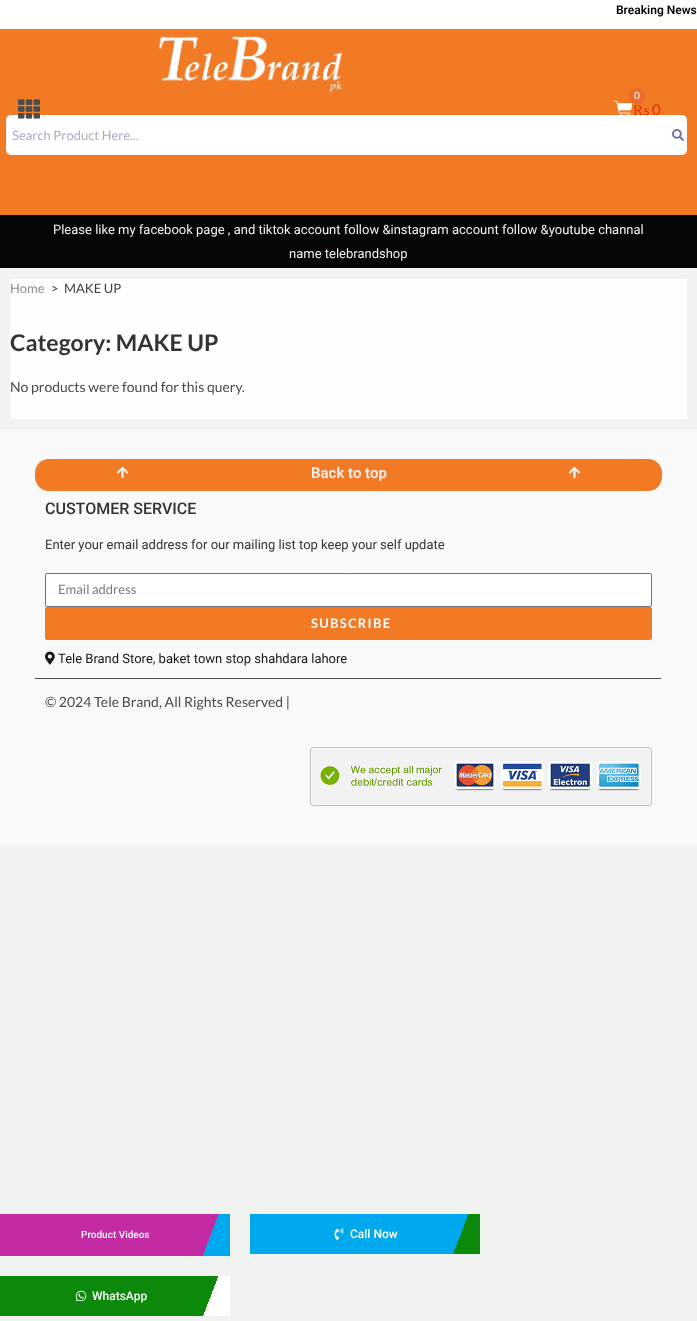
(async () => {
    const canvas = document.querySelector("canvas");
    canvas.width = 697;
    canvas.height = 1321;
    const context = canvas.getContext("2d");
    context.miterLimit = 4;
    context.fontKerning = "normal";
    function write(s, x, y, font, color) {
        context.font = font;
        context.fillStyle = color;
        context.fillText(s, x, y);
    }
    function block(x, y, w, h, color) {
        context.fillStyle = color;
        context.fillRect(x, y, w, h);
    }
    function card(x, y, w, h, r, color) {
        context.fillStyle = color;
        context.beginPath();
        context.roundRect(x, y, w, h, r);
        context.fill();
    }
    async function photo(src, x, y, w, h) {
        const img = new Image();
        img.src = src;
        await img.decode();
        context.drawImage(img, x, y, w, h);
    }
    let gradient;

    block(0, 0, 697, 1321, "rgb(240, 243, 239)");
    block(0, 0, 697, 29, "rgb(255, 255, 255)");
    write("Breaking News", 616, 14, "600 12px Roboto", "rgb(0, 0, 0)");
    block(0, 29, 697, 186, "rgb(242, 122, 36)");
    await photo("media/1.png", 614, 100, 19, 15);
    context.fillStyle = "rgb(237, 108, 41)";
    context.beginPath();
    context.arc(637, 96, 8, 0, Math.PI * 2);
    context.fill();
    write("0", 634, 99, "10px Lato", "rgb(255, 255, 255)");
    card(6, 115, 681, 40, 5, "rgb(255, 255, 255)");
    write("₨", 633, 115, "15px Liberation Serif", "rgb(230, 46, 4)");
    write("0", 652, 115, "15px Lato", "rgb(230, 46, 4)");
    await photo("media/2.png", 158, 36, 185, 57);
    write("Search Product Here...", 12, 140, "13px Lato", "rgb(167, 172, 201)");
    await photo("media/3.png", 672, 129, 12, 12);
    await photo("media/4.png", 18, 99, 22, 20);
    block(0, 215, 697, 53, "rgb(5, 5, 5)");
    write("Please like my facebook page , and tiktok account follow &instagram account follow &youtube channal", 53, 234, "13px Roboto", "rgb(247, 239, 239)");
    write("name telebrandshop", 289, 258, "13px Roboto", "rgb(247, 239, 239)");
    block(10, 279, 677, 140, "rgb(255, 254, 254)");
    write("Home", 10, 293, "13px Lato", "rgb(142, 142, 142)");
    write(">", 51, 293, "13px Lato", "rgb(61, 61, 61)");
    write("MAKE UP", 64, 293, "13px Lato", "rgb(61, 61, 61)");
    write("Category: MAKE UP", 10, 351, "bold 23px Lato", "rgb(51, 51, 51)");
    write("No products were found for this query.", 10, 392, "14px Lato", "rgb(74, 74, 74)");
    block(0, 429, 697, 417, "rgb(249, 249, 249)");
    card(35, 459, 627, 32, 14, "rgb(242, 122, 36)");
    await photo("media/5.png", 117, 466, 11, 13);
    write("Back to top", 311, 478, "600 15px Roboto", "rgb(247, 239, 239)");
    await photo("media/5.png", 569, 466, 11, 13);
    block(35, 678, 626, 1, "rgb(74, 74, 74)");
    write("CUSTOMER SERVICE", 45, 514, "500 16px Roboto", "rgb(51, 51, 51)");
    write("Enter your email address for our mailing list top keep your self update", 45, 549, "13px Roboto", "rgb(51, 51, 51)");
    context.fillStyle = "rgb(255, 255, 255)";
    context.beginPath();
    context.roundRect(45.5, 573.5, 606, 33, 1.5);
    context.fill();
    context.strokeStyle = "rgb(105, 114, 125)";
    context.stroke();
    write("Email address", 58, 594, "13px Lato", "rgb(121, 122, 124)");
    card(45, 607, 607, 33, 2, "rgb(242, 122, 36)");
    context.letterSpacing = "1.25px";
    write("SUBSCRIBE", 311, 628, "bold 13px Lato", "rgb(255, 255, 255)");
    await photo("media/6.png", 45, 651, 10, 14);
    context.letterSpacing = "0px";
    write("Tele Brand Store, baket town stop shahdara lahore", 58, 663, "13px Roboto", "rgb(23, 24, 26)");
    write("© 2024 Tele Brand, All Rights Reserved |", 45, 707, "14px Lato", "rgb(74, 74, 74)");
    await photo("media/7.png", 310, 747, 342, 59);
    gradient = context.createLinearGradient(7.7, 1194, 222, 1276);
    gradient.addColorStop(0.89, "rgb(195, 42, 163)");
    gradient.addColorStop(0.89, "rgb(0, 169, 237)");
    context.fillStyle = gradient;
    context.fillRect(0, 1214, 230, 42);
    write("Product Videos", 81, 1238, "500 10px Roboto", "rgb(255, 255, 255)");
    gradient = context.createLinearGradient(258, 1193, 472, 1275);
    gradient.addColorStop(0.89, "rgb(0, 169, 237)");
    gradient.addColorStop(0.89, "rgb(12, 136, 10)");
    context.fillStyle = gradient;
    context.fillRect(250, 1214, 230, 40);
    await photo("media/8.png", 334, 1228, 10, 12);
    write("Call Now", 350, 1238, "500 12px Roboto", "rgb(255, 255, 255)");
    gradient = context.createLinearGradient(8, 1255, 222, 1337);
    gradient.addColorStop(0.89, "rgb(12, 136, 10)");
    gradient.addColorStop(0.89, "rgb(255, 255, 255)");
    context.fillStyle = gradient;
    context.fillRect(0, 1276, 230, 40);
    await photo("media/9.png", 75, 1290, 12, 12);
    write("WhatsApp", 92, 1300, "500 12px Roboto", "rgb(255, 255, 255)");
})();
